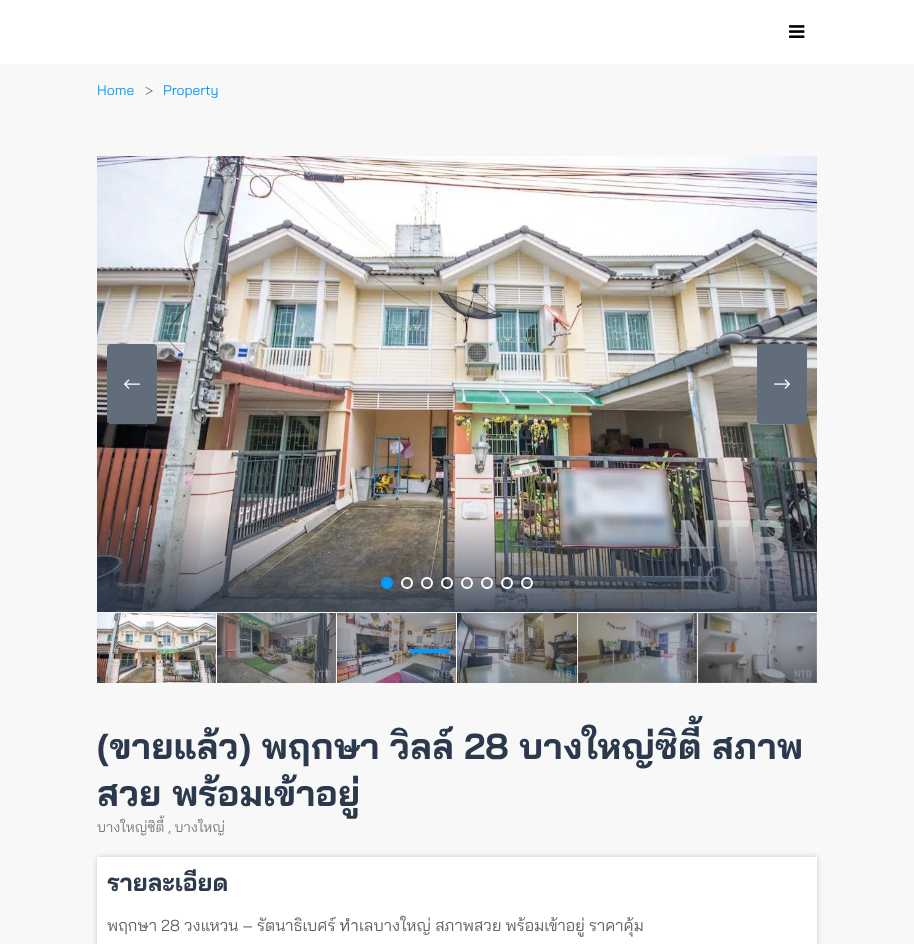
(async () => {
    const canvas = document.querySelector("canvas");
    canvas.width = 914;
    canvas.height = 944;
    const context = canvas.getContext("2d");
    context.miterLimit = 4;
    context.fontKerning = "normal";
    function write(s, x, y, font, color) {
        context.font = font;
        context.fillStyle = color;
        context.fillText(s, x, y);
    }
    function block(x, y, w, h, color) {
        context.fillStyle = color;
        context.fillRect(x, y, w, h);
    }
    function card(x, y, w, h, r, color) {
        context.fillStyle = color;
        context.beginPath();
        context.roundRect(x, y, w, h, r);
        context.fill();
    }
    async function photo(src, x, y, w, h) {
        const img = new Image();
        img.src = src;
        await img.decode();
        context.drawImage(img, x, y, w, h);
    }

    block(0, 0, 914, 944, "rgb(248, 248, 248)");
    block(0, 0, 914, 64, "rgb(255, 255, 255)");
    await photo("media/1.png", 789, 25, 16, 13);
    write("Home", 97, 95, "14px Bai Jamjuree", "rgb(0, 156, 255)");
    write(">", 145, 95, "14px Bai Jamjuree", "rgb(121, 121, 121)");
    write("Property", 163, 95, "14px Bai Jamjuree", "rgb(0, 156, 255)");
    await photo("media/2.png", 97, 156, 720, 456);
    card(107, 344, 50, 80, 4, "rgb(98, 109, 123)");
    await photo("media/3.png", 124, 379, 16, 10);
    card(757, 344, 50, 80, 4, "rgb(98, 109, 123)");
    await photo("media/4.png", 774, 379, 16, 10);
    context.fillStyle = "rgb(0, 156, 255)";
    context.beginPath();
    context.arc(387, 583, 5, 0, Math.PI * 2);
    context.fill();
    context.strokeStyle = "rgb(0, 156, 255)";
    context.lineWidth = 2;
    context.stroke();
    context.beginPath();
    context.arc(407, 583, 5, 0, Math.PI * 2);
    context.strokeStyle = "rgb(255, 255, 255)";
    context.stroke();
    context.beginPath();
    context.arc(427, 583, 5, 0, Math.PI * 2);
    context.stroke();
    context.beginPath();
    context.arc(447, 583, 5, 0, Math.PI * 2);
    context.stroke();
    context.beginPath();
    context.arc(467, 583, 5, 0, Math.PI * 2);
    context.stroke();
    context.beginPath();
    context.arc(487, 583, 5, 0, Math.PI * 2);
    context.stroke();
    context.beginPath();
    context.arc(507, 583, 5, 0, Math.PI * 2);
    context.stroke();
    context.beginPath();
    context.arc(527, 583, 5, 0, Math.PI * 2);
    context.stroke();
    await photo("media/5.png", 97, 613, 119, 70);
    await photo("media/6.png", 217, 613, 119, 70);
    await photo("media/7.png", 337, 613, 119, 70);
    await photo("media/8.png", 457, 613, 120, 70);
    await photo("media/9.png", 577, 613, 120, 70);
    await photo("media/10.png", 697, 613, 120, 70);
    block(410, 649, 40, 4, "rgb(0, 156, 255)");
    block(464, 649, 40, 4, "rgb(79, 82, 87)");
    write("(ขายแล้ว) พฤกษา วิลล์ 28 บางใหญ่ซิตี้ สภาพ", 97, 759, "bold 36px Bai Jamjuree", "rgb(44, 57, 76)");
    write("สวย พร้อมเข้าอยู่", 97, 806, "bold 36px Bai Jamjuree", "rgb(44, 57, 76)");
    write("บางใหญ่ซิตี้ , บางใหญ่", 97, 832, "14px Bai Jamjuree", "rgb(121, 121, 121)");
    context.fillStyle = "rgba(0, 0, 0, 0.2)";
    context.filter = "blur(2.5px)";
    context.beginPath();
    context.rect(97, 857, 720, 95);
    context.fill();
    context.filter = "none";
    block(97, 857, 720, 87, "rgb(255, 255, 255)");
    write("รายละเอียด", 107, 891, "bold 24px Bai Jamjuree", "rgb(44, 57, 76)");
    write("พฤกษา 28 วงแหวน – รัตนาธิเบศร์ ทำเลบางใหญ่ สภาพสวย พร้อมเข้าอยู่ ราคาคุ้ม", 107, 931, "16px Bai Jamjuree", "rgb(98, 98, 98)");
})();
